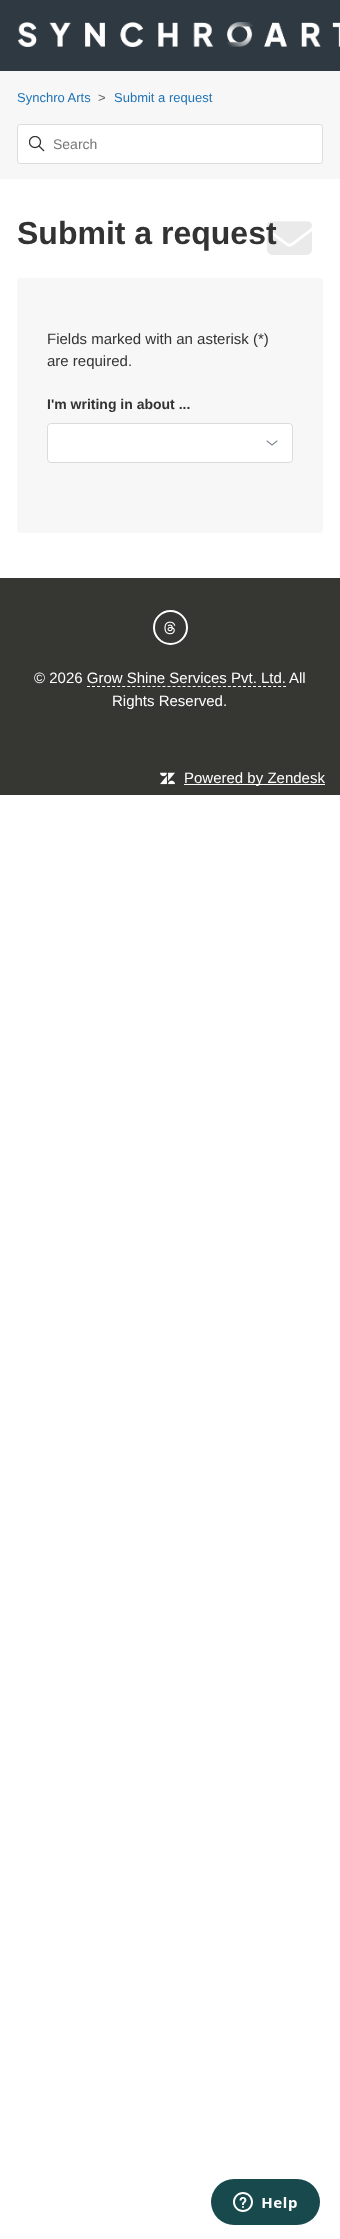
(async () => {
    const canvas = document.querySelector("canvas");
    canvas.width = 340;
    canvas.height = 2239;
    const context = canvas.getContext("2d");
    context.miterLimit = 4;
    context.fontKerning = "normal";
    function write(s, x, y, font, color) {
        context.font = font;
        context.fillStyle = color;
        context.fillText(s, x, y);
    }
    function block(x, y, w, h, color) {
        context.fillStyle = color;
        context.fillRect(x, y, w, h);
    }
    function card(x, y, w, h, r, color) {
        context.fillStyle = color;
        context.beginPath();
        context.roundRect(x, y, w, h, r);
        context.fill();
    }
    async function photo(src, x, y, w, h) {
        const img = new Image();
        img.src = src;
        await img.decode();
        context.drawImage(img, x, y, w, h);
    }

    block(0, 0, 340, 2239, "rgb(255, 255, 255)");
    block(0, 0, 340, 71, "rgb(47, 57, 65)");
    await photo("media/1.png", 17, 22, 323, 25);
    block(0, 71, 340, 108, "rgb(247, 247, 247)");
    write("Synchro Arts", 17, 102, "13px Liberation Sans", "rgb(31, 115, 183)");
    write(">", 98, 102, "13px Liberation Sans", "rgb(102, 102, 102)");
    write("Submit a request", 114, 102, "13px Liberation Sans", "rgb(31, 115, 183)");
    context.fillStyle = "rgb(255, 255, 255)";
    context.beginPath();
    context.roundRect(17.5, 124.5, 305, 39, 2.5);
    context.fill();
    context.strokeStyle = "rgb(221, 221, 221)";
    context.stroke();
    await photo("media/2.png", 29, 136, 16, 16);
    write("Search", 53, 149, "14px Liberation Sans", "rgb(117, 117, 117)");
    write("Submit a request", 17, 244, "bold 32px Liberation Sans", "rgb(51, 51, 51)");
    await photo("media/3.png", 267, 221, 45, 34);
    card(17, 278, 306, 255, 3, "rgb(247, 247, 247)");
    write("Fields marked with an asterisk (*)", 47, 344, "15px Liberation Sans", "rgb(51, 51, 51)");
    write("are required.", 47, 366, "15px Liberation Sans", "rgb(51, 51, 51)");
    write("I'm writing in about ...", 47, 409, "bold 14px Liberation Sans", "rgb(51, 51, 51)");
    context.fillStyle = "rgb(255, 255, 255)";
    context.beginPath();
    context.roundRect(47.5, 423.5, 245, 39, 3.5);
    context.fill();
    context.strokeStyle = "rgb(216, 220, 222)";
    context.stroke();
    await photo("media/4.png", 266, 440, 12, 6);
    block(0, 578, 340, 217, "rgb(54, 54, 51)");
    context.beginPath();
    context.arc(170.5, 627.5, 16.5, 0, Math.PI * 2);
    context.strokeStyle = "rgb(255, 255, 255)";
    context.lineWidth = 2;
    context.stroke();
    await photo("media/5.png", 164, 621, 12, 14);
    write("© 2026 Grow Shine Services Pvt. Ltd.", 34, 683, "15px Liberation Sans", "rgb(255, 255, 255)");
    write("All", 289, 683, "15px Liberation Sans", "rgb(255, 255, 255)");
    context.beginPath();
    context.moveTo(87, 686.5);
    context.lineTo(286, 686.5);
    context.lineWidth = 1;
    context.setLineDash([3, 2.03]);
    context.stroke();
    write("Rights Reserved.", 112, 706, "15px Liberation Sans", "rgb(255, 255, 255)");
    await photo("media/6.png", 160, 772, 15, 13);
    block(184, 784, 141, 1, "rgb(255, 255, 255)");
    write("Powered by Zendesk", 184, 783, "15px Liberation Sans", "rgb(255, 255, 255)");
    await photo("media/7.png", 211, 2179, 109, 46);
})();
